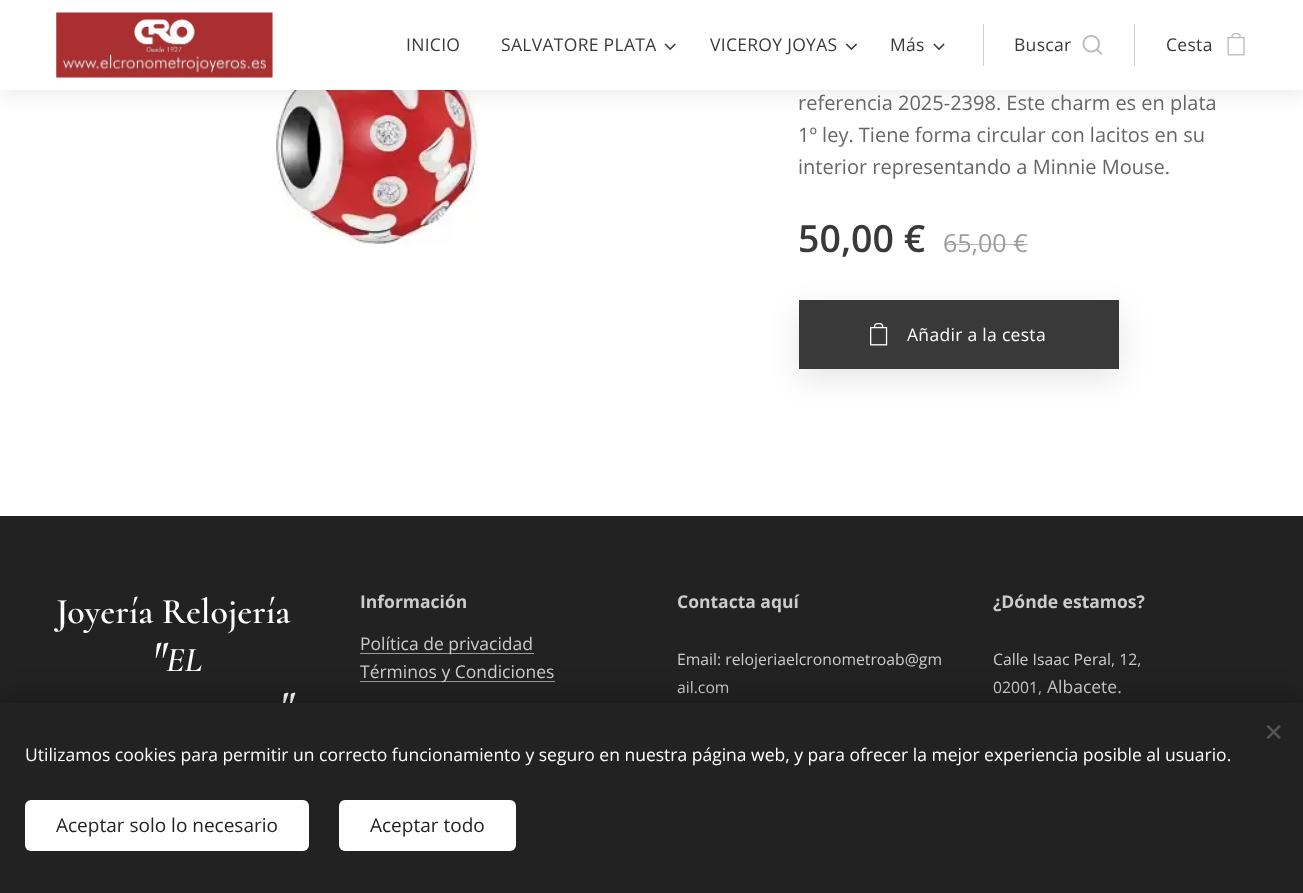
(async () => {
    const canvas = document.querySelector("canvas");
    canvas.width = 1303;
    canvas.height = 893;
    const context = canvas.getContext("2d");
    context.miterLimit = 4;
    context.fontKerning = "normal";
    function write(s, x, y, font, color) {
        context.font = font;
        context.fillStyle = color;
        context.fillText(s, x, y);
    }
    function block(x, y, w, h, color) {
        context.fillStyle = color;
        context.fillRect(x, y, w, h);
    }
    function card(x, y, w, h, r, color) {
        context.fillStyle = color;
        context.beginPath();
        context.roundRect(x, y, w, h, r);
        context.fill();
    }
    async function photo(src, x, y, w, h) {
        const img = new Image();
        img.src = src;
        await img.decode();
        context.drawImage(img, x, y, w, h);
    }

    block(0, 0, 1303, 893, "rgb(255, 255, 255)");
    await photo("media/7.png", 274, 90, 204, 155);
    context.fillStyle = "rgba(0, 0, 0, 0.07)";
    context.filter = "blur(9.5px)";
    context.beginPath();
    context.rect(0, 6, 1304, 90);
    context.fill();
    context.filter = "none";
    block(0, 0, 1303, 90, "rgb(255, 255, 255)");
    await photo("media/1.png", 56, 12, 217, 66);
    context.letterSpacing = "0.3px";
    write("INICIO", 406, 51, "17.5px Open Sans", "rgb(57, 57, 57)");
    write("SALVATORE PLATA", 501, 51, "17.5px Open Sans", "rgb(57, 57, 57)");
    await photo("media/2.png", 664, 43, 12, 7);
    write("VICEROY JOYAS", 710, 51, "17.5px Open Sans", "rgb(57, 57, 57)");
    await photo("media/3.png", 845, 43, 12, 7);
    write("Más", 890, 51, "17.5px Open Sans", "rgb(57, 57, 57)");
    await photo("media/4.png", 933, 43, 12, 7);
    block(983, 24, 1, 42, "rgb(209, 209, 209)");
    write("Buscar", 1014, 51, "17.5px Open Sans", "rgb(57, 57, 57)");
    await photo("media/5.png", 1082, 35, 21, 20);
    block(1134, 24, 1, 42, "rgb(209, 209, 209)");
    write("Cesta", 1166, 51, "17.5px Open Sans", "rgb(57, 57, 57)");
    await photo("media/6.png", 1227, 33, 18, 23);
    context.letterSpacing = "0px";
    write("referencia 2025-2398. Este charm es en plata", 798, 110, "20px Open Sans", "rgb(102, 102, 102)");
    write("1º ley. Tiene forma circular con lacitos en su", 798, 142, "20px Open Sans", "rgb(102, 102, 102)");
    write("interior representando a Minnie Mouse.", 798, 174, "20px Open Sans", "rgb(102, 102, 102)");
    write("50,00 €", 798, 252, "600 37.5px Open Sans", "rgb(57, 57, 57)");
    write("65,00 €", 943, 252, "25px Open Sans", "rgb(157, 157, 157)");
    block(944, 244, 84, 1, "rgba(157, 157, 157, 0.75)");
    context.fillStyle = "rgba(0, 0, 0, 0.1)";
    context.filter = "blur(15.5px)";
    context.beginPath();
    context.rect(799, 310, 320, 69);
    context.fill();
    context.filter = "none";
    block(799, 300, 320, 69, "rgb(57, 57, 57)");
    await photo("media/8.png", 870, 323, 18, 23);
    context.letterSpacing = "0.3px";
    write("Añadir a la cesta", 907, 341, "17.5px Open Sans", "rgb(255, 255, 255)");
    block(0, 516, 1303, 187, "rgb(34, 34, 34)");
    context.letterSpacing = "0px";
    write("Joyería Relojería", 56, 623, "600 36px Cormorant", "rgb(255, 255, 255)");
    write("\"", 152, 671, "italic 600 44px Cormorant", "rgb(255, 255, 255)");
    write("EL", 166, 671, "italic 600 35px Cormorant", "rgb(255, 255, 255)");
    write("\"", 279, 721, "italic 600 44px Cormorant", "rgb(255, 255, 255)");
    write("Información", 360, 608, "bold 17.5px Open Sans", "rgb(204, 204, 204)");
    block(360, 653, 174, 1, "rgb(153, 153, 153)");
    write("Política de privacidad", 360, 650, "17.5px Open Sans", "rgb(204, 204, 204)");
    block(360, 681, 195, 1, "rgb(153, 153, 153)");
    write("Términos y Condiciones", 360, 678, "17.5px Open Sans", "rgb(204, 204, 204)");
    write("Contacta aquí", 677, 608, "bold 17.5px Open Sans", "rgb(204, 204, 204)");
    write("Email: relojeriaelcronometroab@gm", 677, 665, "15.75px Open Sans", "rgb(204, 204, 204)");
    write("ail.com", 677, 693, "15.75px Open Sans", "rgb(204, 204, 204)");
    write("¿Dónde estamos?", 993, 608, "bold 17.5px Open Sans", "rgb(204, 204, 204)");
    write("Calle Isaac Peral, 12,", 993, 665, "15.75px Open Sans", "rgb(204, 204, 204)");
    write("02001,", 993, 693, "15.75px Open Sans", "rgb(204, 204, 204)");
    write("Albacete.", 1047, 693, "17.5px Open Sans", "rgb(204, 204, 204)");
    context.fillStyle = "rgba(0, 0, 0, 0.33)";
    context.filter = "blur(15.5px)";
    context.beginPath();
    context.rect(0, 703, 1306, 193);
    context.fill();
    context.filter = "none";
    block(0, 703, 1303, 190, "rgb(34, 34, 34)");
    context.fillStyle = "rgb(85, 85, 85)";
    context.beginPath();
    context.moveTo(1266.5, 737.5);
    context.lineTo(1279, 725);
    context.lineTo(1281, 726.5);
    context.lineTo(1268.5, 739);
    context.closePath();
    context.fill();
    context.beginPath();
    context.moveTo(1268.5, 725);
    context.lineTo(1281, 737.5);
    context.lineTo(1279, 739);
    context.lineTo(1266.5, 726.5);
    context.closePath();
    context.fill();
    write("Utilizamos cookies para permitir un correcto funcionamiento y seguro en nuestra página web, y para ofrecer la mejor experiencia posible al usuario.", 25, 761, "17.5px Open Sans", "rgb(255, 255, 255)");
    card(25, 800, 284, 51, 6, "rgb(255, 255, 255)");
    write("Aceptar solo lo necesario", 56, 832, "19px Open Sans", "rgb(34, 34, 34)");
    card(339, 800, 177, 51, 6, "rgb(255, 255, 255)");
    write("Aceptar todo", 370, 832, "19px Open Sans", "rgb(34, 34, 34)");
})();
